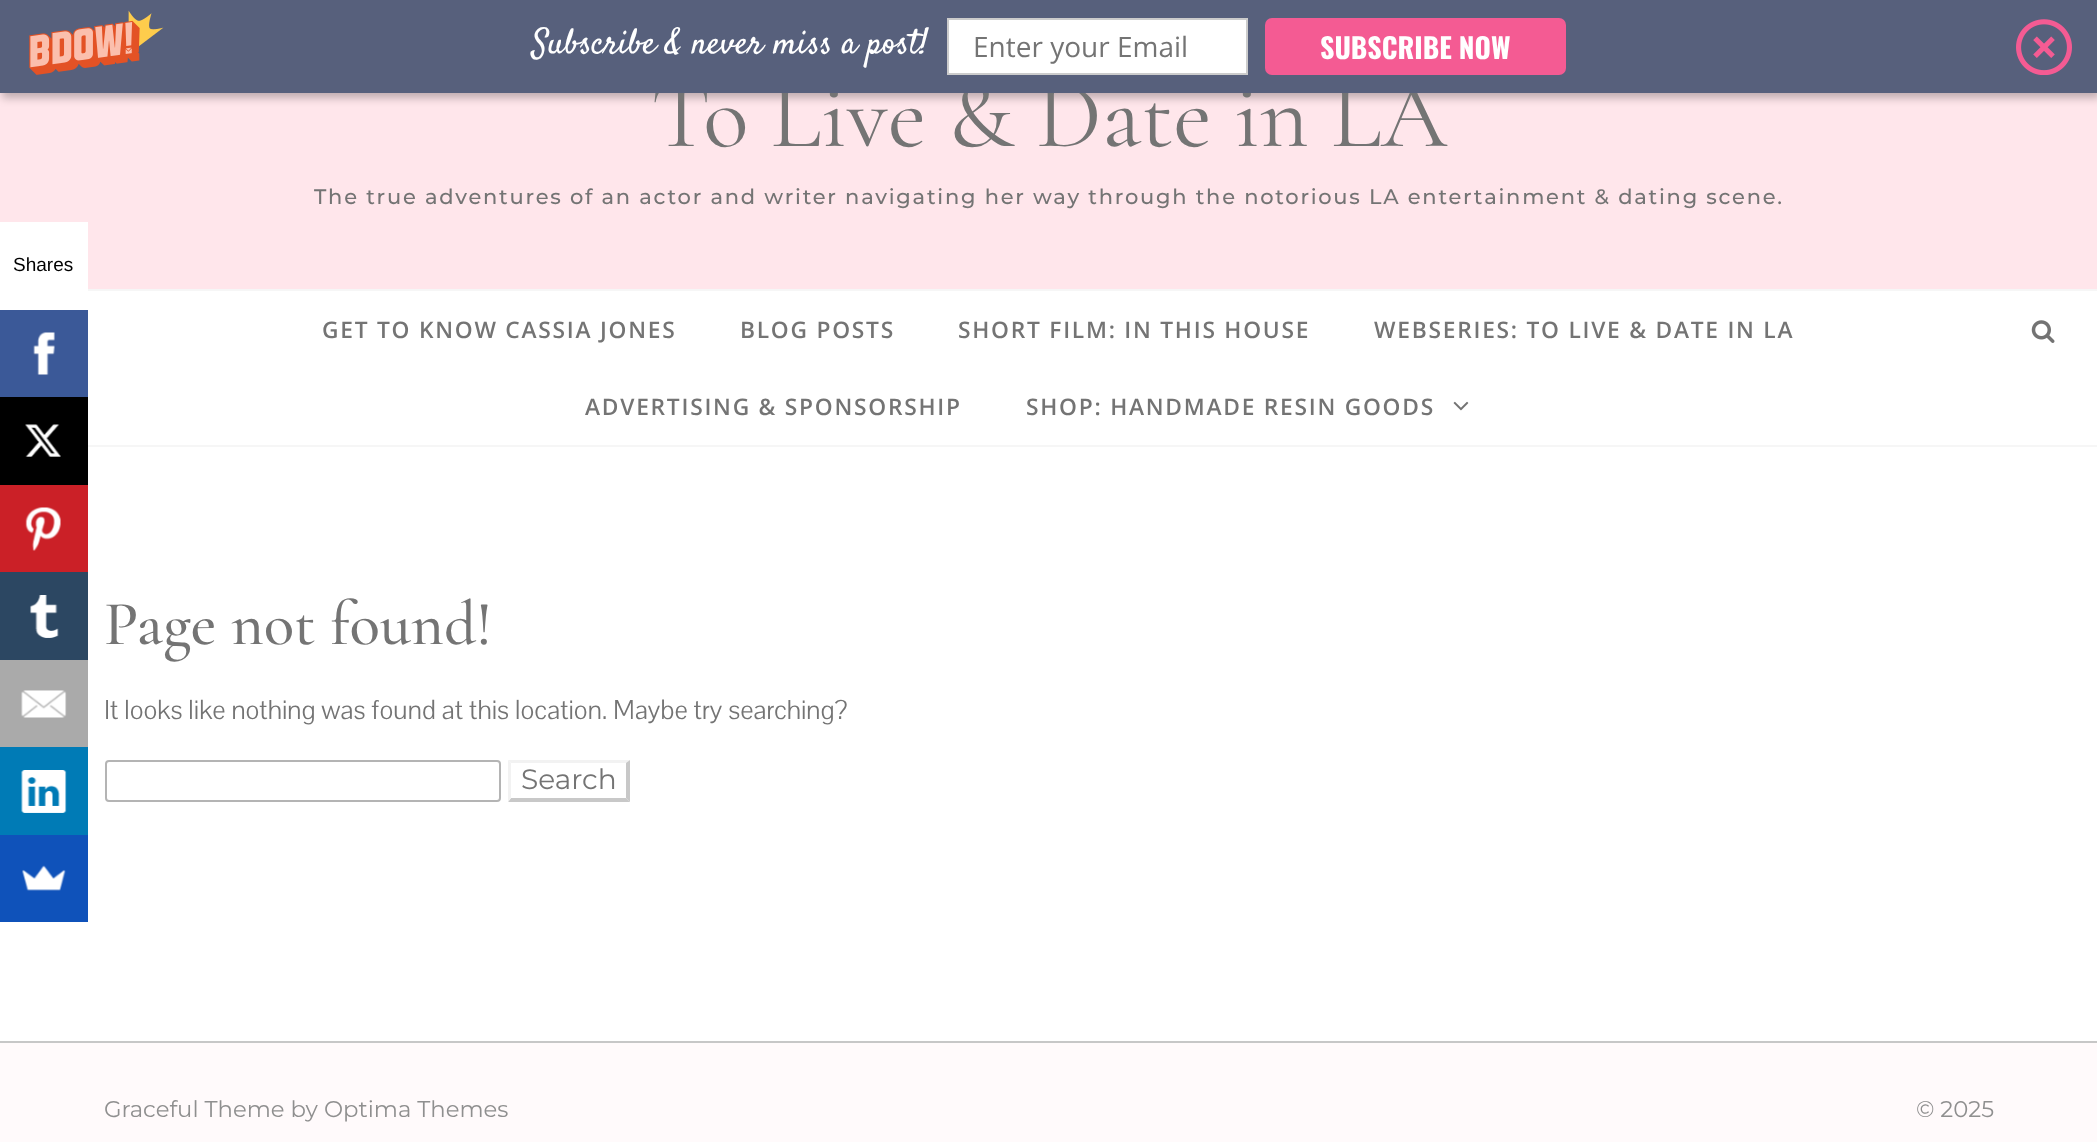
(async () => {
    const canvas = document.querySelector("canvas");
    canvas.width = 2097;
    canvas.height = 1142;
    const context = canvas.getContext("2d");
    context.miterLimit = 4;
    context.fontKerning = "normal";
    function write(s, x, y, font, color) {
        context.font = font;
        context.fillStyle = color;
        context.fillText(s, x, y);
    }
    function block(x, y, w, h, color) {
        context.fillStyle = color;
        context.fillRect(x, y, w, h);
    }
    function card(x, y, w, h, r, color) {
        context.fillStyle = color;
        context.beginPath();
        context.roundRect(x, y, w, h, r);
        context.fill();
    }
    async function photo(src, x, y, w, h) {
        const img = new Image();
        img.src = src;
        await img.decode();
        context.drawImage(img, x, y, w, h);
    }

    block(0, 0, 2097, 1142, "rgb(255, 255, 255)");
    block(0, 93, 2097, 196, "rgb(255, 230, 235)");
    context.fillStyle = "rgba(0, 0, 0, 0.25)";
    context.filter = "blur(4.5px)";
    context.beginPath();
    context.rect(2, 5, 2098, 93);
    context.fill();
    context.filter = "none";
    write("To Live & Date in LA", 651, 146, "94.5px Cormorant Garamond", "rgb(116, 116, 116)");
    block(0, 0, 2097, 93, "rgb(87, 96, 124)");
    await photo("media/1.png", 29, 10, 135, 65);
    write("Subscribe & never miss a post!", 532, 53, "35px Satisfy", "rgb(255, 255, 255)");
    context.beginPath();
    context.rect(948, 19, 299, 55);
    context.fill();
    context.strokeStyle = "rgb(204, 204, 204)";
    context.lineWidth = 2;
    context.stroke();
    write("Enter your Email", 973, 57, "28px Open Sans", "rgb(116, 116, 116)");
    card(1265, 18, 301, 57, 7, "rgb(244, 91, 147)");
    write("SUBSCRIBE NOW", 1320, 59, "bold 28px Oswald", "rgb(255, 255, 255)");
    await photo("media/2.png", 2016, 19, 56, 56);
    block(0, 222, 88, 67, "rgb(255, 255, 255)");
    write("Shares", 13, 271, "19px Liberation Sans", "rgb(0, 0, 0)");
    block(0, 310, 88, 87, "rgb(59, 89, 152)");
    await photo("media/3.png", 33, 332, 22, 43);
    block(0, 397, 88, 88, "rgb(0, 0, 0)");
    await photo("media/4.png", 25, 424, 36, 33);
    block(0, 485, 88, 87, "rgb(203, 32, 39)");
    await photo("media/5.png", 25, 507, 36, 44);
    block(0, 572, 88, 88, "rgb(44, 71, 98)");
    await photo("media/6.png", 30, 595, 29, 43);
    block(0, 660, 88, 87, "rgb(170, 170, 170)");
    await photo("media/7.png", 21, 690, 46, 28);
    block(0, 747, 88, 88, "rgb(0, 123, 182)");
    await photo("media/8.png", 21, 770, 46, 43);
    block(0, 835, 88, 87, "rgb(15, 82, 186)");
    await photo("media/9.png", 22, 865, 44, 26);
    block(88, 289, 2009, 2, "rgb(246, 246, 246)");
    context.letterSpacing = "1.75px";
    write("The true adventures of an actor and writer navigating her way through the notorious LA entertainment & dating scene.", 314, 204, "100 21px 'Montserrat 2'", "rgb(116, 116, 116)");
    block(88, 445, 2009, 2, "rgb(246, 246, 246)");
    write("GET TO KNOW CASSIA JONES", 322, 338, "600 22.75px Open Sans", "rgb(116, 116, 116)");
    write("BLOG POSTS", 740, 338, "600 22.75px Open Sans", "rgb(116, 116, 116)");
    write("SHORT FILM: IN THIS HOUSE", 958, 338, "600 22.75px Open Sans", "rgb(116, 116, 116)");
    write("WEBSERIES: TO LIVE & DATE IN LA", 1374, 338, "600 22.75px Open Sans", "rgb(116, 116, 116)");
    write("ADVERTISING & SPONSORSHIP", 585, 415, "600 22.75px Open Sans", "rgb(116, 116, 116)");
    write("SHOP: HANDMADE RESIN GOODS", 1026, 415, "600 22.75px Open Sans", "rgb(116, 116, 116)");
    await photo("media/10.png", 1453, 401, 16, 10);
    await photo("media/11.png", 2031, 320, 24, 23);
    context.letterSpacing = "0px";
    write("Page not found!", 104, 644, "500 63px Cormorant Garamond", "rgb(116, 116, 116)");
    write("It looks like nothing was found at this location. Maybe try searching?", 104, 719, "28px Pavanam", "rgb(116, 116, 116)");
    context.beginPath();
    context.roundRect(106, 761, 394, 40, 3);
    context.strokeStyle = "rgb(180, 180, 180)";
    context.stroke();
    context.fillStyle = "rgb(242, 242, 242)";
    context.beginPath();
    context.moveTo(508, 760);
    context.lineTo(630, 760);
    context.lineTo(626, 763);
    context.lineTo(511, 763);
    context.closePath();
    context.fill();
    context.fillStyle = "rgb(200, 200, 200)";
    context.beginPath();
    context.moveTo(630, 760);
    context.lineTo(630, 802);
    context.lineTo(626, 798);
    context.lineTo(626, 763);
    context.closePath();
    context.fill();
    context.beginPath();
    context.moveTo(630, 802);
    context.lineTo(508, 802);
    context.lineTo(511, 798);
    context.lineTo(626, 798);
    context.closePath();
    context.fill();
    context.fillStyle = "rgb(242, 242, 242)";
    context.beginPath();
    context.moveTo(508, 802);
    context.lineTo(508, 760);
    context.lineTo(511, 763);
    context.lineTo(511, 798);
    context.closePath();
    context.fill();
    write("Search", 521, 789, "100 28px Montserrat", "rgb(116, 116, 116)");
    block(0, 1043, 2097, 99, "rgb(255, 250, 251)");
    block(0, 1041, 2097, 2, "rgb(199, 199, 199)");
    write("Graceful Theme by Optima Themes", 104, 1117, "100 22.75px Montserrat", "rgb(143, 143, 143)");
    write("© 2025", 1916, 1117, "100 22.75px Montserrat", "rgb(143, 143, 143)");
})();
